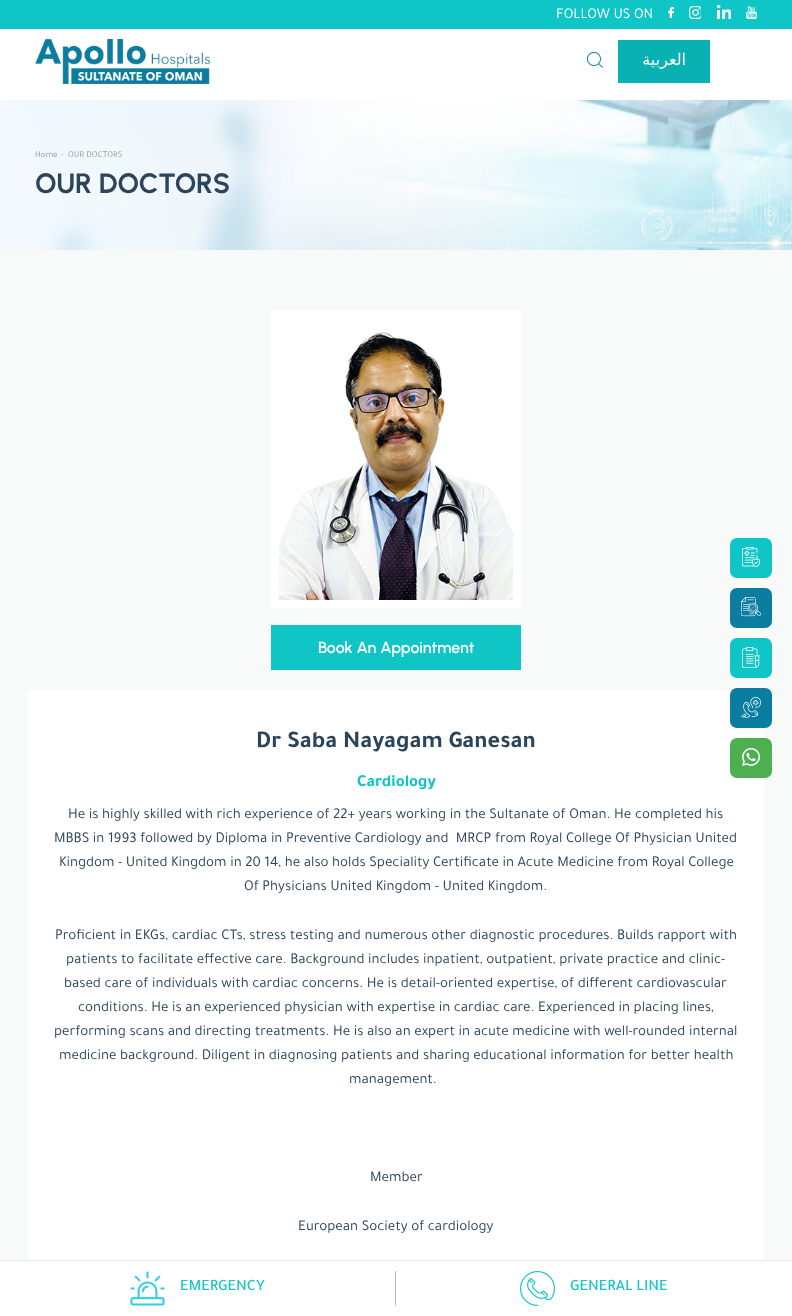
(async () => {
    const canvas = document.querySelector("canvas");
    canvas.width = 792;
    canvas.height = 1316;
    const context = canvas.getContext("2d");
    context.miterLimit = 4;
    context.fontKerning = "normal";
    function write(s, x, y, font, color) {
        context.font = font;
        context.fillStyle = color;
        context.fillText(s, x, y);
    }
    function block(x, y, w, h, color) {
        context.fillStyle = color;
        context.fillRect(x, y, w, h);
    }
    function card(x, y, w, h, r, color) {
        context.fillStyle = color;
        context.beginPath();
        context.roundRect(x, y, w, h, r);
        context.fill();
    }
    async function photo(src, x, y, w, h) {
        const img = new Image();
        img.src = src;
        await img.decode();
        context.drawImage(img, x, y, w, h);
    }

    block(0, 0, 792, 1316, "rgb(255, 255, 255)");
    block(0, 0, 792, 29, "rgb(16, 197, 198)");
    write("FOLLOW US ON", 556, 18, "15px Tajawal", "rgb(255, 255, 255)");
    await photo("media/1.png", 668, 7, 6, 11);
    await photo("media/2.png", 689, 6, 12, 13);
    await photo("media/3.png", 717, 5, 14, 14);
    await photo("media/4.png", 746, 6, 11, 13);
    await photo("media/5.png", 35, 39, 175, 45);
    await photo("media/6.png", 587, 52, 16, 16);
    block(618, 40, 92, 43, "rgb(9, 177, 178)");
    context.direction = "rtl";
    write("العربية", 686, 65, "16px DejaVu Sans", "rgb(255, 255, 255)");
    await photo("media/7.png", 0, 100, 792, 150);
    context.direction = "ltr";
    write("Home", 35, 157, "9px Tajawal", "rgb(154, 154, 154)");
    write("-", 61, 157, "9px Tajawal", "rgb(154, 154, 154)");
    write("OUR DOCTORS", 68, 157, "9px Tajawal", "rgb(154, 154, 154)");
    write("OUR DOCTORS", 35, 193, "bold 28px Urbanist", "rgb(44, 69, 90)");
    block(0, 250, 792, 1010, "rgb(248, 249, 249)");
    block(271, 310, 250, 298, "rgb(255, 255, 255)");
    await photo("media/8.png", 279, 332, 234, 268);
    block(271, 625, 250, 45, "rgb(16, 197, 198)");
    write("Book An Appointment", 318, 653, "600 16px Urbanist", "rgb(255, 255, 255)");
    block(28, 690, 736, 570, "rgb(255, 255, 255)");
    write("Dr Saba Nayagam Ganesan", 256, 747, "bold 24px Tajawal", "rgb(44, 69, 90)");
    write("Cardiology", 357, 786, "bold 17px Tajawal", "rgb(16, 197, 198)");
    write("He is highly skilled with rich experience of 22+ years working in the Sultanate of Oman. He completed his", 68, 818, "15px Tajawal", "rgb(44, 69, 90)");
    write("MBBS in 1993 followed by Diploma in Preventive Cardiology and  MRCP from Royal College Of Physician United", 54, 842, "15px Tajawal", "rgb(44, 69, 90)");
    write("Kingdom - United Kingdom in 20 14, he also holds Speciality Certificate in Acute Medicine from Royal College", 59, 866, "15px Tajawal", "rgb(44, 69, 90)");
    write("Of Physicians United Kingdom - United Kingdom.", 244, 890, "15px Tajawal", "rgb(44, 69, 90)");
    write("Proficient in EKGs, cardiac CTs, stress testing and numerous other diagnostic procedures. Builds rapport with", 55, 939, "15px Tajawal", "rgb(44, 69, 90)");
    write("patients to facilitate effective care. Background includes inpatient, outpatient, private practice and clinic-", 66, 963, "15px Tajawal", "rgb(44, 69, 90)");
    write("based care of individuals with cardiac concerns. He is detail-oriented expertise, of different cardiovascular", 64, 987, "15px Tajawal", "rgb(44, 69, 90)");
    write("conditions. He is an experienced physician with expertise in cardiac care. Experienced in placing lines,", 78, 1011, "15px Tajawal", "rgb(44, 69, 90)");
    write("performing scans and directing treatments. He is also an expert in acute medicine with well-rounded internal", 54, 1035, "15px Tajawal", "rgb(44, 69, 90)");
    write("medicine background. Diligent in diagnosing patients and sharing educational information for better health", 59, 1059, "15px Tajawal", "rgb(44, 69, 90)");
    write("management.", 349, 1083, "15px Tajawal", "rgb(44, 69, 90)");
    write("Member", 370, 1181, "15px Tajawal", "rgb(44, 69, 90)");
    write("European Society of cardiology", 298, 1230, "15px Tajawal", "rgb(44, 69, 90)");
    card(730, 538, 42, 40, 7, "rgb(16, 197, 198)");
    await photo("media/9.png", 742, 547, 18, 20);
    card(730, 588, 42, 40, 7, "rgb(10, 125, 160)");
    await photo("media/10.png", 741, 597, 20, 20);
    card(730, 638, 42, 40, 7, "rgb(16, 197, 198)");
    await photo("media/11.png", 742, 647, 18, 21);
    card(730, 688, 42, 40, 7, "rgb(10, 125, 160)");
    await photo("media/12.png", 741, 697, 20, 21);
    card(730, 738, 42, 40, 7, "rgb(76, 175, 80)");
    await photo("media/13.png", 742, 748, 18, 18);
    block(0, 1260, 792, 1, "rgb(236, 236, 236)");
    block(395, 1271, 1, 35, "rgb(189, 189, 189)");
    await photo("media/14.png", 130, 1271, 35, 35);
    write("EMERGENCY", 180, 1290, "500 16px Tajawal", "rgb(16, 197, 198)");
    await photo("media/15.png", 520, 1271, 35, 35);
    write("GENERAL LINE", 570, 1290, "500 16px Tajawal", "rgb(16, 197, 198)");
})();
